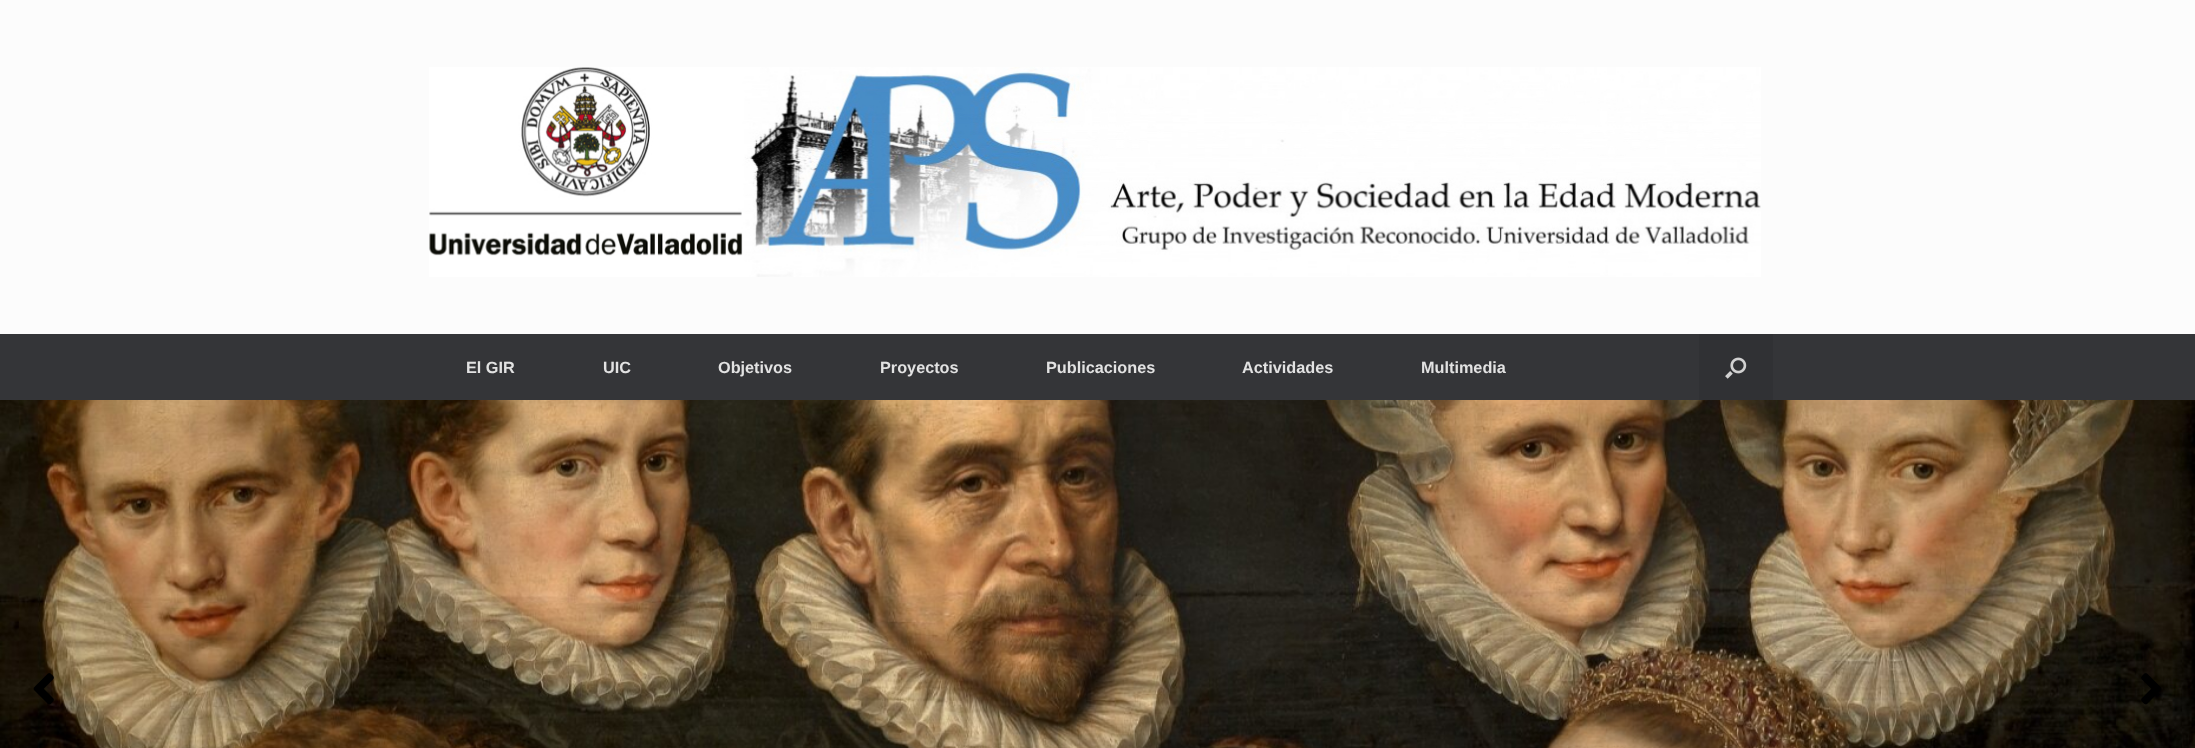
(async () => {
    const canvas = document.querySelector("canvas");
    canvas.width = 2195;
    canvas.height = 748;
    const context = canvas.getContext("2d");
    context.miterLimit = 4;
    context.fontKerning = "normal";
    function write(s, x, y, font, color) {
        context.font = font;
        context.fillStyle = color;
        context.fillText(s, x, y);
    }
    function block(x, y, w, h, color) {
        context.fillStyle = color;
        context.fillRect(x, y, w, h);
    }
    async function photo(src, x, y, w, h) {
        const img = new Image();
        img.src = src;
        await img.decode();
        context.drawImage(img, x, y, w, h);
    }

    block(0, 0, 2195, 748, "rgb(252, 252, 252)");
    await photo("media/1.png", 429, 67, 1332, 210);
    block(0, 334, 2195, 66, "rgb(52, 53, 56)");
    write("El GIR", 466, 373, "bold 16.25px Liberation Sans", "rgb(226, 226, 226)");
    write("UIC", 603, 373, "bold 16.25px Liberation Sans", "rgb(226, 226, 226)");
    write("Objetivos", 718, 373, "bold 16.25px Liberation Sans", "rgb(226, 226, 226)");
    write("Proyectos", 880, 373, "bold 16.25px Liberation Sans", "rgb(226, 226, 226)");
    write("Publicaciones", 1046, 373, "bold 16.25px Liberation Sans", "rgb(226, 226, 226)");
    write("Actividades", 1242, 373, "bold 16.25px Liberation Sans", "rgb(226, 226, 226)");
    write("Multimedia", 1421, 373, "bold 16.25px Liberation Sans", "rgb(226, 226, 226)");
    block(1699, 334, 74, 66, "rgb(48, 49, 52)");
    await photo("media/2.png", 1725, 357, 22, 22);
    await photo("media/3.png", 0, 400, 2195, 348);
    await photo("media/4.png", 33, 673, 21, 32);
    await photo("media/5.png", 2141, 673, 20, 32);
})();
